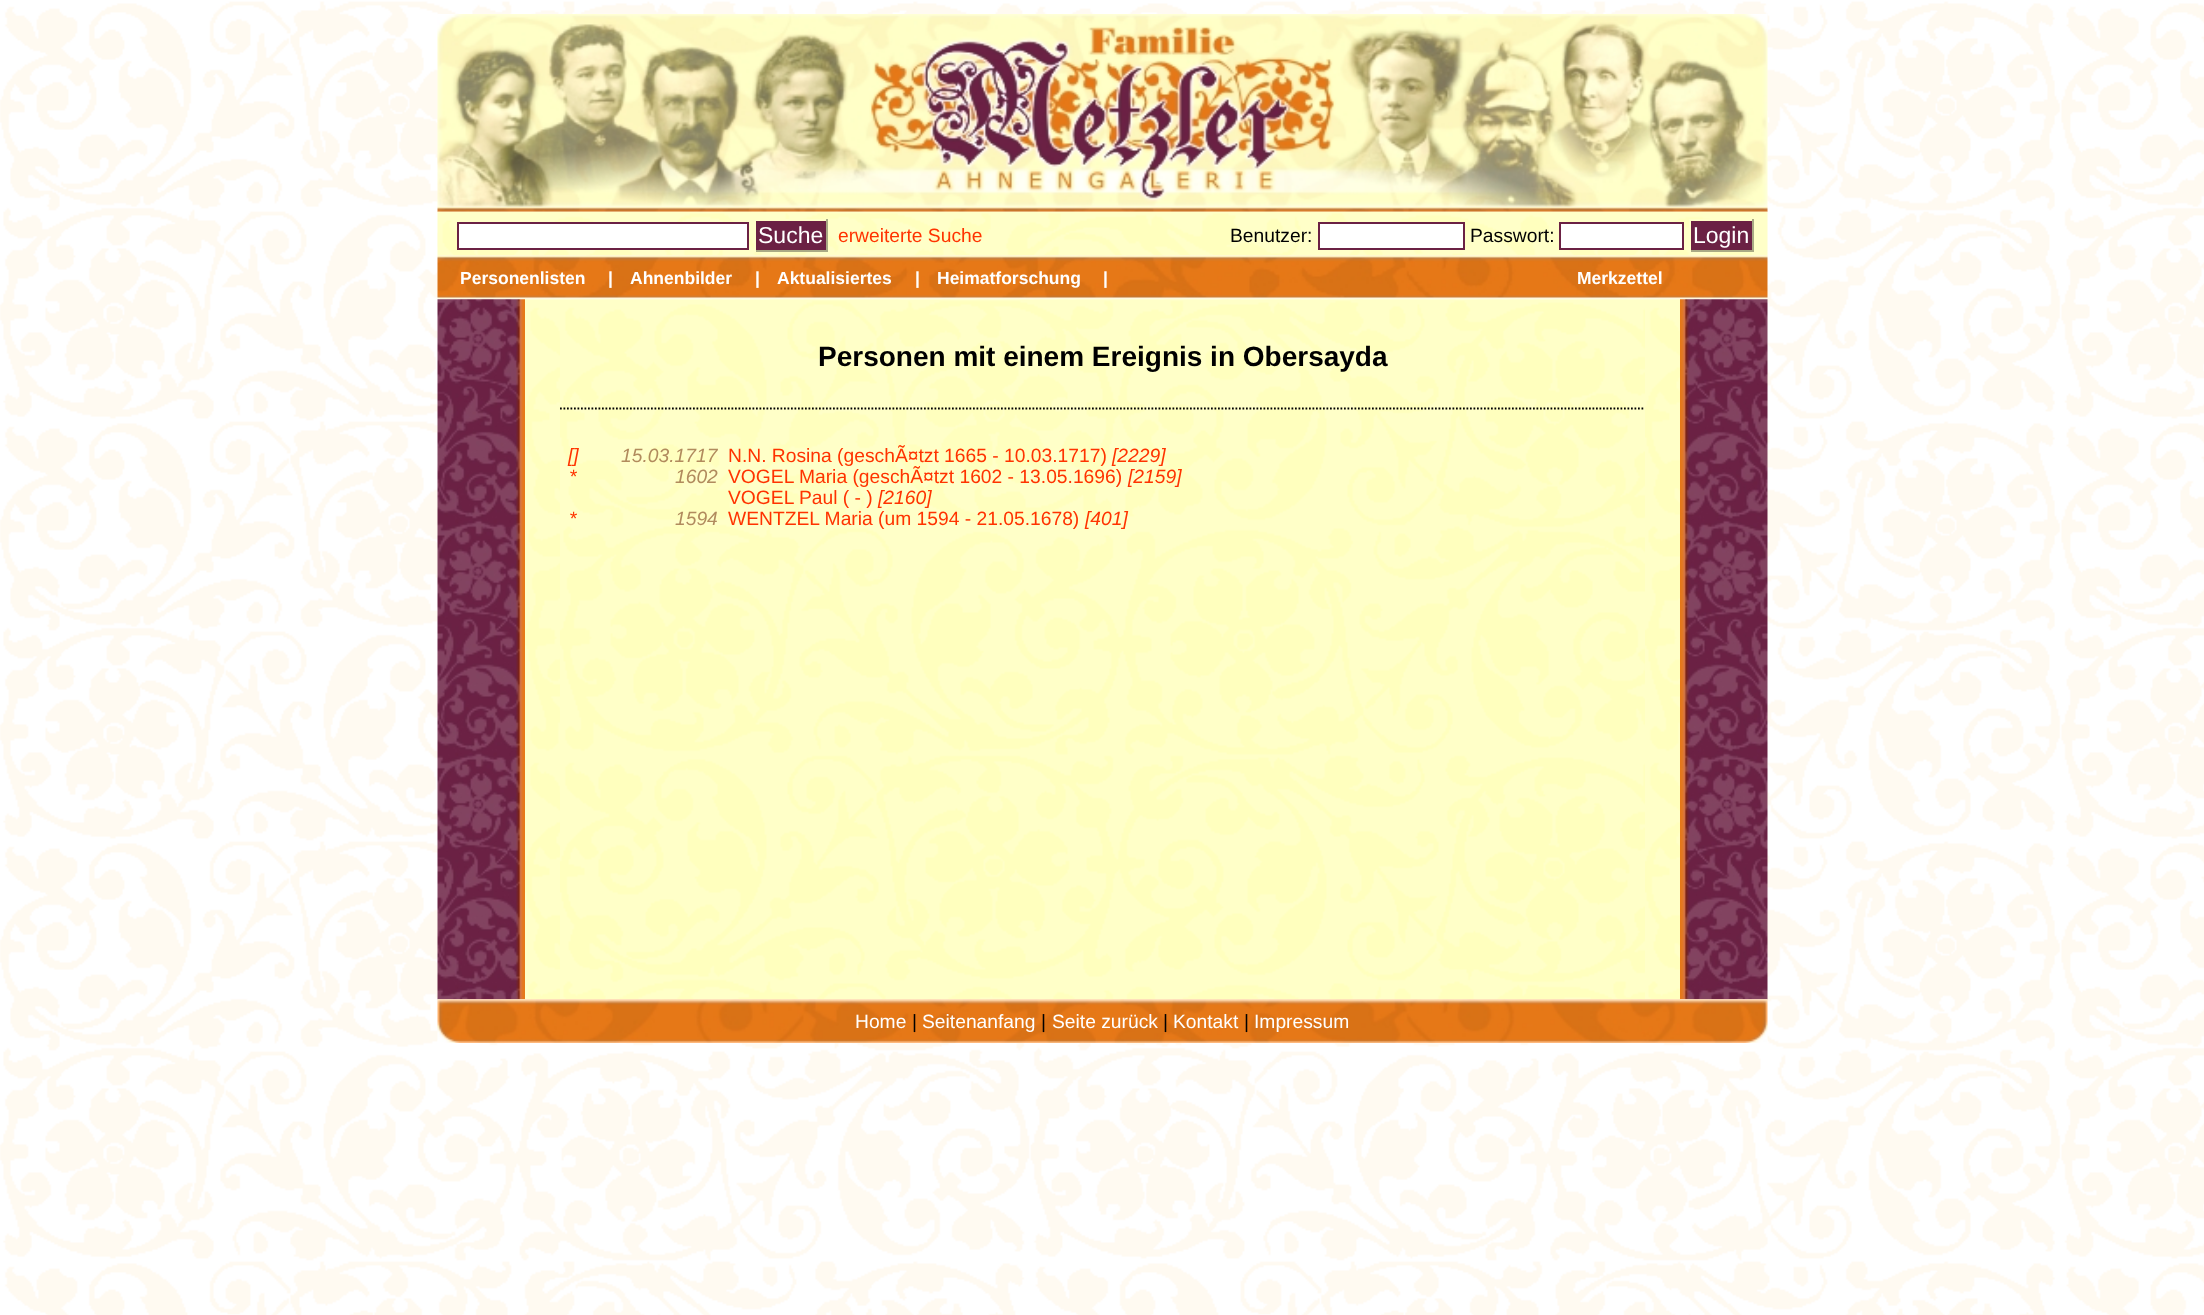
(async () => {
    const canvas = document.querySelector("canvas");
    canvas.width = 2204;
    canvas.height = 1315;
    const context = canvas.getContext("2d");
    context.miterLimit = 4;
    context.fontKerning = "normal";
    function write(s, x, y, font, color) {
        context.font = font;
        context.fillStyle = color;
        context.fillText(s, x, y);
    }
    function block(x, y, w, h, color) {
        context.fillStyle = color;
        context.fillRect(x, y, w, h);
    }
    async function photo(src, x, y, w, h) {
        const img = new Image();
        img.src = src;
        await img.decode();
        context.drawImage(img, x, y, w, h);
    }

    block(0, 0, 2204, 1315, "rgb(255, 255, 255)");
    await photo("media/1.png", 0, 1, 2204, 1314);
    await photo("media/3.png", 437, 206, 1331, 6);
    await photo("media/2.png", 437, 14, 1331, 193);
    await photo("media/4.png", 437, 211, 1331, 45);
    context.beginPath();
    context.rect(458, 223, 290, 26);
    context.fill();
    context.strokeStyle = "rgb(107, 33, 68)";
    context.lineWidth = 2;
    context.stroke();
    block(756, 221, 70, 29, "rgb(107, 33, 68)");
    block(784, 219, 44, 2, "rgb(255, 255, 200)");
    block(826, 219, 2, 33, "rgb(170, 170, 133)");
    block(754, 250, 74, 2, "rgb(170, 170, 133)");
    block(754, 244, 2, 8, "rgb(255, 255, 200)");
    write("Suche", 758, 243, "23px Liberation Sans", "rgb(255, 255, 255)");
    write("erweiterte Suche", 838, 242, "19.25px Liberation Sans", "rgb(255, 51, 0)");
    write("Benutzer:", 1230, 242, "19.25px Liberation Sans", "rgb(0, 0, 0)");
    context.fillStyle = "rgb(255, 255, 255)";
    context.beginPath();
    context.rect(1319, 223, 145, 26);
    context.fill();
    context.stroke();
    write("Passwort:", 1470, 242, "19.25px Liberation Sans", "rgb(0, 0, 0)");
    context.fillStyle = "rgb(255, 255, 255)";
    context.beginPath();
    context.rect(1560, 223, 123, 26);
    context.fill();
    context.stroke();
    block(1691, 221, 61, 29, "rgb(107, 33, 68)");
    block(1689, 219, 24, 2, "rgb(255, 255, 200)");
    block(1752, 219, 2, 33, "rgb(170, 170, 133)");
    block(1689, 250, 65, 2, "rgb(170, 170, 133)");
    block(1689, 219, 2, 33, "rgb(255, 255, 200)");
    write("Login", 1693, 243, "23px Liberation Sans", "rgb(255, 255, 255)");
    await photo("media/5.png", 437, 255, 1331, 45);
    write("Personenlisten", 460, 284, "bold 17.5px Liberation Sans", "rgb(255, 255, 255)");
    write("|", 608, 284, "bold 17.5px Liberation Sans", "rgb(255, 255, 255)");
    write("Ahnenbilder", 630, 284, "bold 17.5px Liberation Sans", "rgb(255, 255, 255)");
    write("|", 755, 284, "bold 17.5px Liberation Sans", "rgb(255, 255, 255)");
    write("Aktualisiertes", 777, 284, "bold 17.5px Liberation Sans", "rgb(255, 255, 255)");
    write("|", 915, 284, "bold 17.5px Liberation Sans", "rgb(255, 255, 255)");
    write("Heimatforschung", 937, 284, "bold 17.5px Liberation Sans", "rgb(255, 255, 255)");
    write("|", 1103, 284, "bold 17.5px Liberation Sans", "rgb(255, 255, 255)");
    write("Merkzettel", 1577, 284, "bold 17.5px Liberation Sans", "rgb(255, 255, 255)");
    await photo("media/6.png", 437, 299, 88, 701);
    await photo("media/7.png", 525, 299, 35, 701);
    await photo("media/8.png", 560, 299, 1085, 701);
    write("Personen mit einem Ereignis in Obersayda", 818, 366, "bold 28px Liberation Sans", "rgb(0, 0, 0)");
    context.beginPath();
    context.moveTo(560, 408.5);
    context.lineTo(1645, 408.5);
    context.strokeStyle = "rgb(0, 0, 0)";
    context.lineWidth = 1.8;
    context.setLineDash([1.75, 1.75]);
    context.stroke();
    write("[]", 568, 462, "italic 19.25px Liberation Sans", "rgb(255, 51, 0)");
    write("15.03.1717", 621, 462, "italic 19.25px Liberation Sans", "rgb(177, 139, 93)");
    write("N.N. Rosina (geschÃ¤tzt 1665 - 10.03.1717)", 728, 462, "19.25px Liberation Sans", "rgb(255, 51, 0)");
    write("[2229]", 1112, 462, "italic 19.25px Liberation Sans", "rgb(255, 51, 0)");
    write("*", 569, 483, "italic 19.25px Liberation Sans", "rgb(255, 51, 0)");
    write("1602", 675, 483, "italic 19.25px Liberation Sans", "rgb(177, 139, 93)");
    write("VOGEL Maria (geschÃ¤tzt 1602 - 13.05.1696)", 728, 483, "19.25px Liberation Sans", "rgb(255, 51, 0)");
    write("[2159]", 1128, 483, "italic 19.25px Liberation Sans", "rgb(255, 51, 0)");
    write("VOGEL Paul ( - )", 728, 504, "19.25px Liberation Sans", "rgb(255, 51, 0)");
    write("[2160]", 878, 504, "italic 19.25px Liberation Sans", "rgb(255, 51, 0)");
    write("*", 569, 525, "italic 19.25px Liberation Sans", "rgb(255, 51, 0)");
    write("1594", 675, 525, "italic 19.25px Liberation Sans", "rgb(177, 139, 93)");
    write("WENTZEL Maria (um 1594 - 21.05.1678)", 728, 525, "19.25px Liberation Sans", "rgb(255, 51, 0)");
    write("[401]", 1085, 525, "italic 19.25px Liberation Sans", "rgb(255, 51, 0)");
    await photo("media/9.png", 1645, 299, 35, 701);
    await photo("media/10.png", 1680, 299, 88, 701);
    await photo("media/11.png", 437, 999, 1331, 44);
    write("Home", 855, 1028, "19.25px Liberation Sans", "rgb(255, 255, 255)");
    write("|", 912, 1028, "19.25px Liberation Sans", "rgb(0, 0, 0)");
    write("Seitenanfang", 922, 1028, "19.25px Liberation Sans", "rgb(255, 255, 255)");
    write("|", 1041, 1028, "19.25px Liberation Sans", "rgb(0, 0, 0)");
    write("Seite zurück", 1052, 1028, "19.25px Liberation Sans", "rgb(255, 255, 255)");
    write("|", 1163, 1028, "19.25px Liberation Sans", "rgb(0, 0, 0)");
    write("Kontakt", 1173, 1028, "19.25px Liberation Sans", "rgb(255, 255, 255)");
    write("|", 1244, 1028, "19.25px Liberation Sans", "rgb(0, 0, 0)");
    write("Impressum", 1254, 1028, "19.25px Liberation Sans", "rgb(255, 255, 255)");
})();
